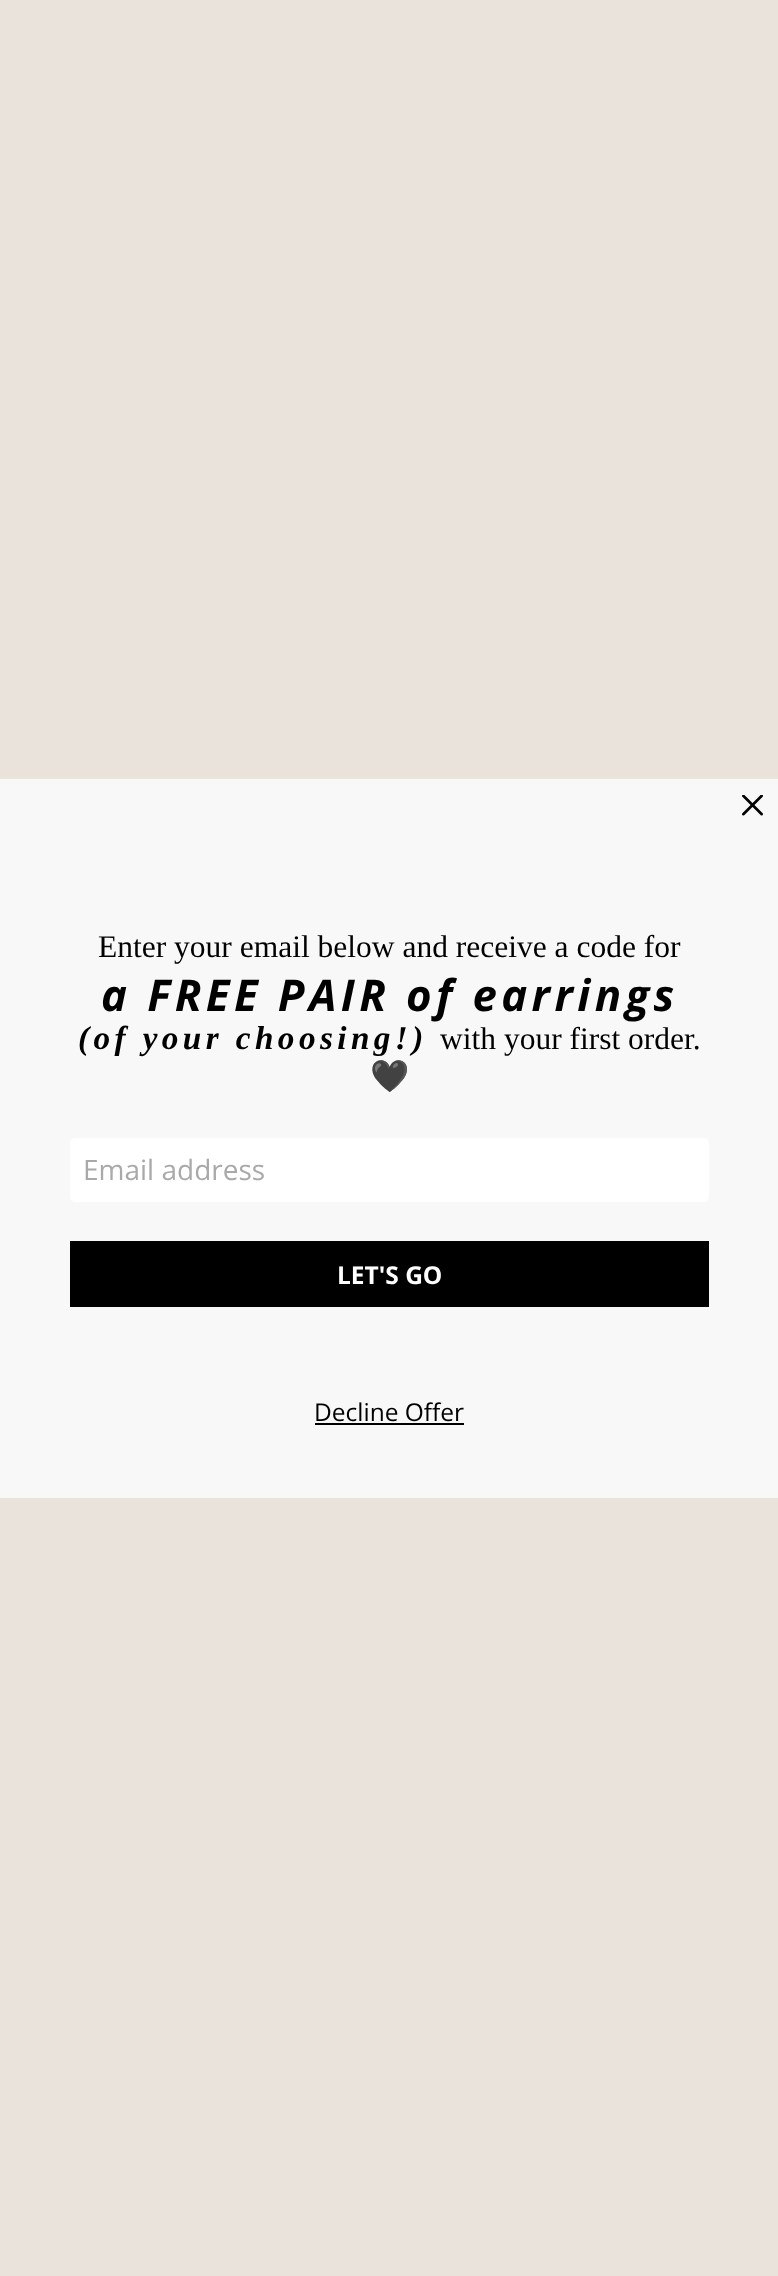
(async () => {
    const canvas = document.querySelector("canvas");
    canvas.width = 778;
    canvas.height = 2276;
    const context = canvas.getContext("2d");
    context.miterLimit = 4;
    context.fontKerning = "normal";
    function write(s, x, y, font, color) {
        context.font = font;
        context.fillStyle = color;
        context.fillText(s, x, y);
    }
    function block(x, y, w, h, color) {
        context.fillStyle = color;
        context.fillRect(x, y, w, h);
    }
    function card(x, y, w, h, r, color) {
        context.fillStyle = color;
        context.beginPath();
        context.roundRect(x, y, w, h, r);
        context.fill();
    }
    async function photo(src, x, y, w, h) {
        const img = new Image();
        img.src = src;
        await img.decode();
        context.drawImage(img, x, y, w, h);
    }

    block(0, 0, 778, 2276, "rgb(233, 227, 220)");
    block(0, 779, 778, 719, "rgb(248, 248, 248)");
    await photo("media/1.png", 742, 795, 21, 21);
    write("Enter your email below and receive a code for", 98, 957, "31.5px Liberation Serif", "rgb(0, 0, 0)");
    context.letterSpacing = "4.4px";
    write("a FREE PAIR of earrings", 101, 1011, "italic bold 43.75px Open Sans", "rgb(0, 0, 0)");
    write("(of your choosing!)", 78, 1049, "italic bold 33.25px Liberation Serif", "rgb(0, 0, 0)");
    context.letterSpacing = "0px";
    write("with your first order.", 440, 1049, "31.5px Liberation Serif", "rgb(0, 0, 0)");
    write("🖤", 370, 1087, "31.5px Noto Color Emoji", "rgb(0, 0, 0)");
    card(70, 1138, 639, 64, 5, "rgb(255, 255, 255)");
    write("Email address", 83, 1180, "28px Open Sans", "rgb(169, 169, 169)");
    block(70, 1241, 639, 66, "rgb(0, 0, 0)");
    write("LET'S GO", 337, 1284, "bold 24.5px Open Sans", "rgb(255, 255, 255)");
    write("Decline Offer", 314, 1421, "24.5px Open Sans", "rgb(0, 0, 0)");
    block(315, 1423, 149, 2, "rgb(0, 0, 0)");
})();
